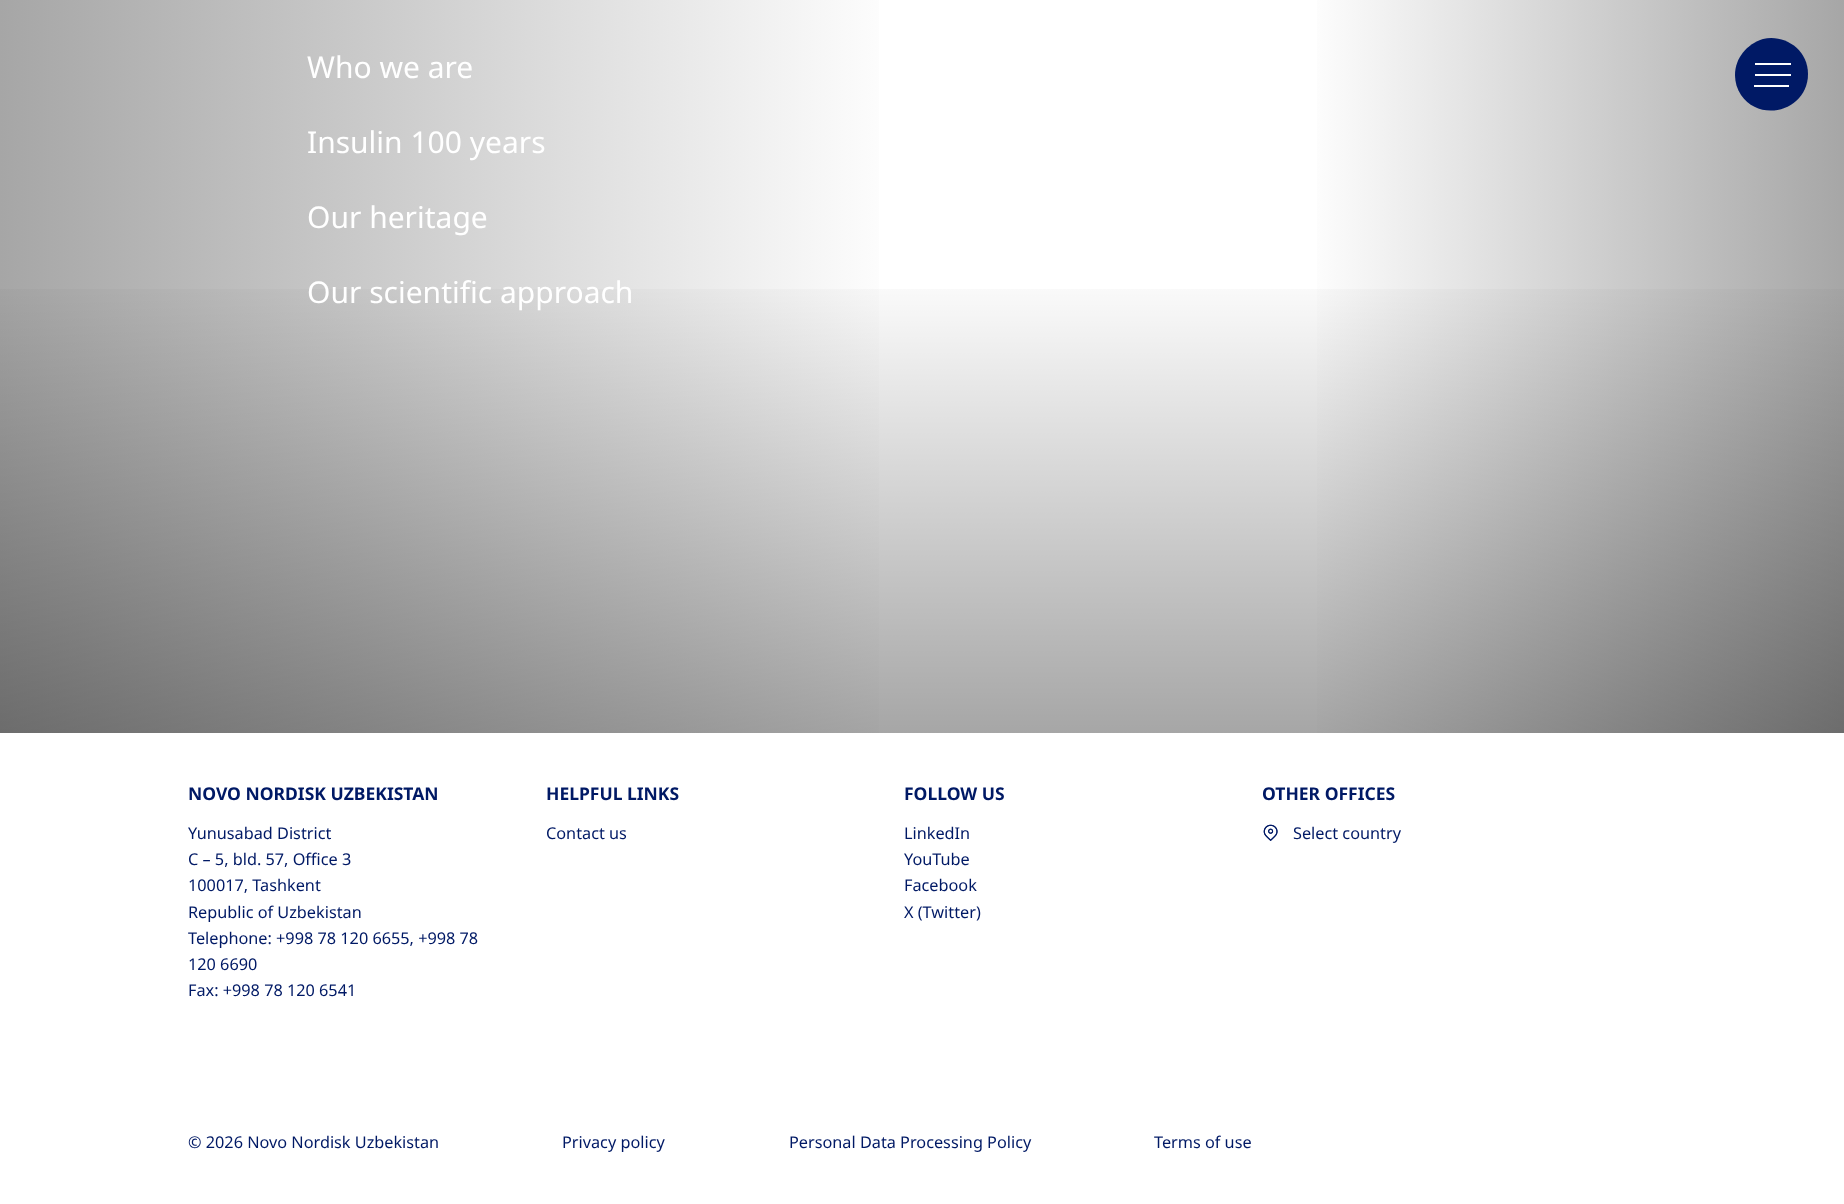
(async () => {
    const canvas = document.querySelector("canvas");
    canvas.width = 1844;
    canvas.height = 1204;
    const context = canvas.getContext("2d");
    context.miterLimit = 4;
    context.fontKerning = "normal";
    function write(s, x, y, font, color) {
        context.font = font;
        context.fillStyle = color;
        context.fillText(s, x, y);
    }
    function block(x, y, w, h, color) {
        context.fillStyle = color;
        context.fillRect(x, y, w, h);
    }
    async function photo(src, x, y, w, h) {
        const img = new Image();
        img.src = src;
        await img.decode();
        context.drawImage(img, x, y, w, h);
    }
    let gradient;

    block(0, 0, 1844, 1204, "rgb(255, 255, 255)");
    gradient = context.createLinearGradient(0, 130, 923, 130);
    gradient.addColorStop(0, "rgb(166, 166, 166)");
    gradient.addColorStop(0.98, "rgb(255, 255, 255)");
    context.fillStyle = gradient;
    context.fillRect(0, 0, 879, 733);
    gradient = context.createLinearGradient(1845, 130, 1291, 130);
    gradient.addColorStop(0, "rgb(166, 166, 166)");
    gradient.addColorStop(0.98, "rgb(255, 255, 255)");
    context.fillStyle = gradient;
    context.fillRect(1317, 0, 527, 733);
    gradient = context.createLinearGradient(923, 733, 923, 250);
    gradient.addColorStop(0, "rgba(0, 0, 0, 0.35)");
    gradient.addColorStop(0.98, "rgba(0, 0, 0, 0)");
    context.fillStyle = gradient;
    context.fillRect(0, 289, 1844, 444);
    write("Who we are", 307, 78, "30px Noto Sans", "rgb(255, 255, 255)");
    write("Insulin 100 years", 307, 153, "30px Noto Sans", "rgb(255, 255, 255)");
    write("Our heritage", 307, 228, "30px Noto Sans", "rgb(255, 255, 255)");
    write("Our scientific approach", 307, 303, "30px Noto Sans", "rgb(255, 255, 255)");
    context.fillStyle = "rgb(0, 25, 101)";
    context.beginPath();
    context.moveTo(1808, 74);
    context.bezierCurveTo(1808, 110, 1761, 124, 1741, 95);
    context.bezierCurveTo(1737, 89, 1735, 82, 1735, 75);
    context.bezierCurveTo(1735, 58, 1747, 44, 1763, 39);
    context.bezierCurveTo(1784, 34, 1808, 49, 1808, 74);
    context.closePath();
    context.fill();
    block(1755, 63, 36, 2, "rgb(255, 255, 255)");
    block(1755, 74, 36, 2, "rgb(255, 255, 255)");
    block(1754, 85, 35, 2, "rgb(255, 255, 255)");
    write("NOVO NORDISK UZBEKISTAN", 188, 800, "bold 17.5px Noto Sans", "rgb(0, 25, 101)");
    write("Yunusabad District", 188, 839, "16.25px Noto Sans", "rgb(0, 25, 101)");
    write("C – 5, bld. 57, Office 3", 188, 865, "16.25px Noto Sans", "rgb(0, 25, 101)");
    write("100017, Tashkent", 188, 891, "16.25px Noto Sans", "rgb(0, 25, 101)");
    write("Republic of Uzbekistan", 188, 918, "16.25px Noto Sans", "rgb(0, 25, 101)");
    write("Telephone: +998 78 120 6655, +998 78", 188, 944, "16.25px Noto Sans", "rgb(0, 25, 101)");
    write("120 6690", 188, 970, "16.25px Noto Sans", "rgb(0, 25, 101)");
    write("Fax: +998 78 120 6541", 188, 996, "16.25px Noto Sans", "rgb(0, 25, 101)");
    write("HELPFUL LINKS", 546, 800, "bold 17.5px Noto Sans", "rgb(0, 25, 101)");
    write("Contact us", 546, 839, "16.25px Noto Sans", "rgb(0, 25, 101)");
    write("FOLLOW US", 904, 800, "bold 17.5px Noto Sans", "rgb(0, 25, 101)");
    write("LinkedIn", 904, 839, "16.25px Noto Sans", "rgb(0, 25, 101)");
    write("YouTube", 904, 865, "16.25px Noto Sans", "rgb(0, 25, 101)");
    write("Facebook", 904, 891, "16.25px Noto Sans", "rgb(0, 25, 101)");
    write("X (Twitter)", 904, 918, "16.25px Noto Sans", "rgb(0, 25, 101)");
    write("OTHER OFFICES", 1262, 800, "bold 17.5px Noto Sans", "rgb(0, 25, 101)");
    await photo("media/1.png", 1263, 824, 15, 17);
    await photo("media/3.png", 1268, 828, 6, 6);
    await photo("media/2.png", 1263, 824, 15, 17);
    await photo("media/4.png", 1268, 828, 6, 6);
    write("Select country", 1293, 839, "16.25px Noto Sans", "rgb(0, 25, 101)");
    write("© 2026 Novo Nordisk Uzbekistan", 188, 1148, "16.25px Noto Sans", "rgb(0, 25, 101)");
    write("Privacy policy", 562, 1148, "16.25px Noto Sans", "rgb(0, 25, 101)");
    write("Personal Data Processing Policy", 789, 1148, "16.25px Noto Sans", "rgb(0, 25, 101)");
    write("Terms of use", 1154, 1148, "16.25px Noto Sans", "rgb(0, 25, 101)");
})();
